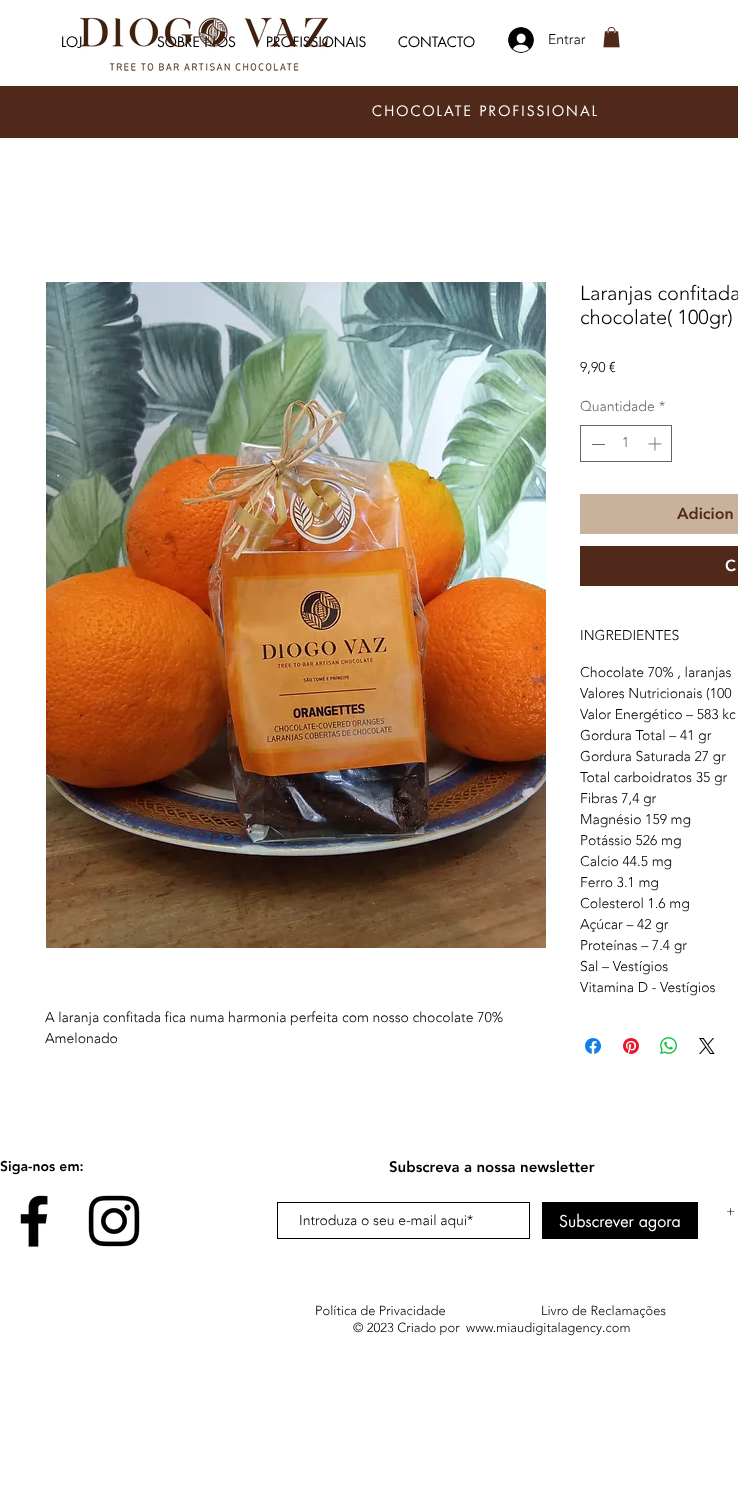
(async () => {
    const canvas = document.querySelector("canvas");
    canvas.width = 738;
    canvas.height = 1492;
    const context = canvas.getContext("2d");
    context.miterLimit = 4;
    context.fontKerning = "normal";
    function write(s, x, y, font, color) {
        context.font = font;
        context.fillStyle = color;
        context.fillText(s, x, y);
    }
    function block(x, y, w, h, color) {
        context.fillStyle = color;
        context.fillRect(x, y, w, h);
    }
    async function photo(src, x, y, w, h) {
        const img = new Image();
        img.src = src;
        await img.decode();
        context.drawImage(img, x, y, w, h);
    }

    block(0, 0, 738, 1492, "rgb(255, 255, 255)");
    write("LOJ", 61, 47, "14px futura", "rgb(0, 0, 0)");
    write("SOBRE NÓS", 157, 47, "14px futura", "rgb(0, 0, 0)");
    write("PROFISSIONAIS", 266, 47, "14px futura", "rgb(0, 0, 0)");
    await photo("media/1.png", 80, 17, 248, 54);
    write("CONTACTO", 398, 47, "14px futura", "rgb(0, 0, 0)");
    await photo("media/2.png", 508, 27, 26, 26);
    write("Entrar", 548, 44, "300 14px 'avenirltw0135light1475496'", "rgb(0, 0, 0)");
    await photo("media/3.png", 603, 27, 17, 21);
    block(0, 86, 738, 52, "rgb(80, 41, 26)");
    context.letterSpacing = "2.1px";
    write("CHOCOLATE PROFISSIONAL", 372, 116, "14px futura", "rgb(255, 255, 255)");
    context.letterSpacing = "0px";
    write("Laranjas confitada", 580, 300, "300 20px 'avenirltw0135light1475496'", "rgb(0, 0, 0)");
    write("chocolate( 100gr)", 580, 324, "300 20px 'avenirltw0135light1475496'", "rgb(0, 0, 0)");
    write("9,90 €", 580, 372, "300 14px 'avenirltw0135light1475496'", "rgb(0, 0, 0)");
    write("Quantidade", 580, 411, "300 14px 'avenirltw0135light1475496'", "rgb(102, 102, 102)");
    write("*", 659, 411, "300 14px 'avenirltw0135light1475496'", "rgb(102, 102, 102)");
    context.strokeStyle = "rgb(102, 102, 102)";
    context.strokeRect(580.5, 425.5, 91, 36);
    block(592, 444, 13, 1, "rgb(102, 102, 102)");
    write("1", 622, 447, "300 14px 'avenirltw0135light1475496'", "rgb(102, 102, 102)");
    await photo("media/4.png", 648, 437, 14, 14);
    block(580, 494, 158, 40, "rgb(200, 178, 156)");
    write("Adicion", 677, 519, "900 16px 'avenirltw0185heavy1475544'", "rgb(80, 41, 26)");
    block(580, 546, 158, 40, "rgb(80, 41, 26)");
    write("C", 725, 571, "900 16px 'avenirltw0185heavy1475544'", "rgb(255, 255, 255)");
    write("INGREDIENTES", 580, 640, "300 14px 'avenirltw0135light1475496'", "rgb(0, 0, 0)");
    write("Chocolate 70% , laranjas", 580, 677, "300 14px 'avenirltw0135light1475496'", "rgb(0, 0, 0)");
    write("Valores Nutricionais (100", 580, 698, "300 14px 'avenirltw0135light1475496'", "rgb(0, 0, 0)");
    write("Valor Energético – 583 kc", 580, 719, "300 14px 'avenirltw0135light1475496'", "rgb(0, 0, 0)");
    write("Gordura Total – 41 gr", 580, 740, "300 14px 'avenirltw0135light1475496'", "rgb(0, 0, 0)");
    write("Gordura Saturada 27 gr", 580, 761, "300 14px 'avenirltw0135light1475496'", "rgb(0, 0, 0)");
    write("Total carboidratos 35 gr", 580, 782, "300 14px 'avenirltw0135light1475496'", "rgb(0, 0, 0)");
    write("Fibras 7,4 gr", 580, 803, "300 14px 'avenirltw0135light1475496'", "rgb(0, 0, 0)");
    write("Magnésio 159 mg", 580, 824, "300 14px 'avenirltw0135light1475496'", "rgb(0, 0, 0)");
    write("Potássio 526 mg", 580, 845, "300 14px 'avenirltw0135light1475496'", "rgb(0, 0, 0)");
    write("Calcio 44.5 mg", 580, 866, "300 14px 'avenirltw0135light1475496'", "rgb(0, 0, 0)");
    write("Ferro 3.1 mg", 580, 887, "300 14px 'avenirltw0135light1475496'", "rgb(0, 0, 0)");
    write("Colesterol 1.6 mg", 580, 908, "300 14px 'avenirltw0135light1475496'", "rgb(0, 0, 0)");
    write("Açúcar – 42 gr", 580, 929, "300 14px 'avenirltw0135light1475496'", "rgb(0, 0, 0)");
    write("Proteínas – 7.4 gr", 580, 950, "300 14px 'avenirltw0135light1475496'", "rgb(0, 0, 0)");
    write("Sal – Vestígios", 580, 971, "300 14px 'avenirltw0135light1475496'", "rgb(0, 0, 0)");
    write("Vitamina D - Vestígios", 580, 992, "300 14px 'avenirltw0135light1475496'", "rgb(0, 0, 0)");
    await photo("media/5.png", 585, 1038, 16, 16);
    await photo("media/6.png", 623, 1038, 16, 16);
    await photo("media/7.png", 660, 1037, 17, 17);
    await photo("media/8.png", 699, 1038, 16, 16);
    await photo("media/9.png", 46, 282, 500, 666);
    write("A laranja confitada fica numa harmonia perfeita com nosso chocolate 70%", 45, 1022, "300 14px 'avenirltw0135light1475496'", "rgb(0, 0, 0)");
    write("Amelonado", 45, 1043, "300 14px 'avenirltw0135light1475496'", "rgb(0, 0, 0)");
    write("Siga-nos em:", 0, 1171, "900 14px 'avenirltw0185heavy1475544'", "rgb(0, 0, 0)");
    write("Subscreva a nossa newsletter", 389, 1172, "900 15px 'avenirltw0185heavy1475544'", "rgb(0, 0, 0)");
    context.strokeStyle = "rgb(0, 0, 0)";
    context.strokeRect(277.5, 1202.5, 252, 36);
    write("Introduza o seu e-mail aqui*", 299, 1225, "300 14px 'avenirltw0135light1475496'", "rgb(0, 0, 0)");
    block(542, 1202, 156, 37, "rgb(0, 0, 0)");
    write("Subscrever agora", 559, 1227, "16px futura", "rgb(255, 255, 255)");
    await photo("media/10.png", 20, 1195, 28, 52);
    await photo("media/11.png", 88, 1195, 52, 52);
    write("+", 726, 1216, "300 14px 'avenirltw0135light1475496'", "rgb(0, 0, 0)");
    write("Política de Privacidade", 315, 1315, "300 13px 'avenirltw0135light1475496'", "rgb(0, 0, 0)");
    write("Livro de Reclamações", 541, 1315, "300 13px 'avenirltw0135light1475496'", "rgb(0, 0, 0)");
    write("© 2023 Criado por", 353, 1332, "300 13px 'avenirltw0135light1475496'", "rgb(0, 0, 0)");
    write("www.miaudigitalagency.com", 466, 1332, "300 13px 'avenirltw0135light1475496'", "rgb(0, 0, 0)");
})();
